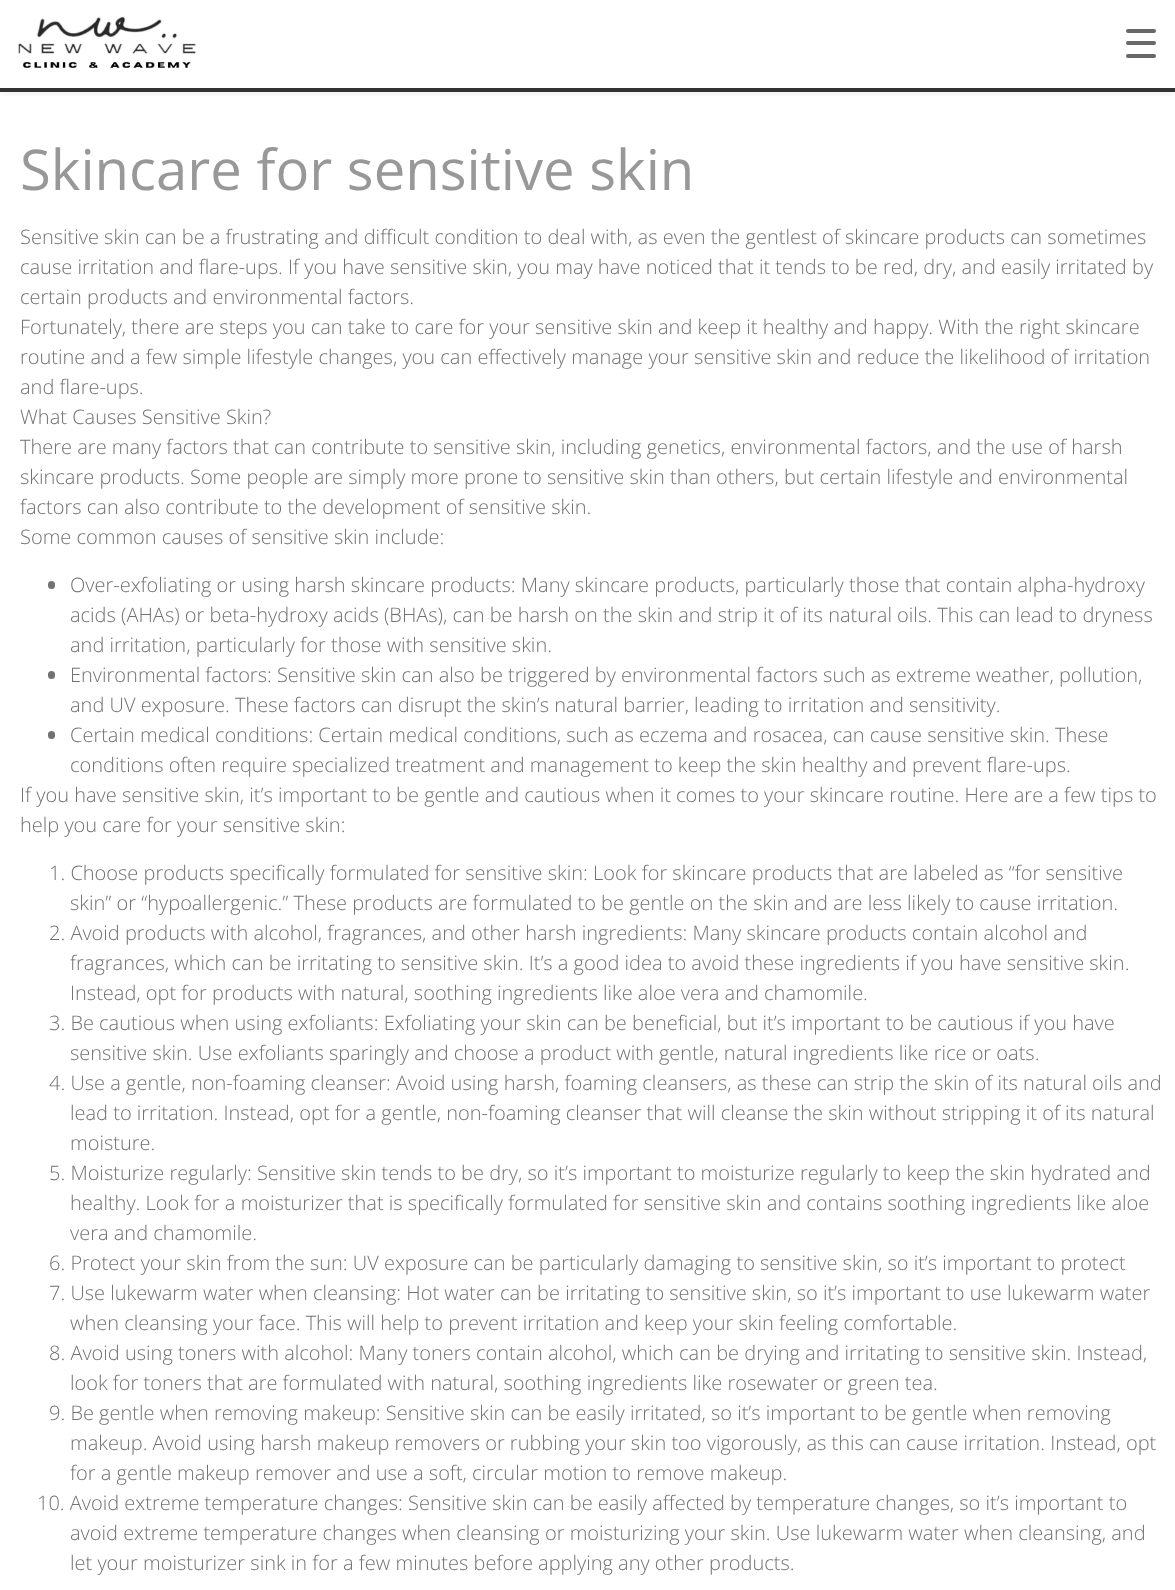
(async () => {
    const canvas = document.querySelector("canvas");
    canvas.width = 1175;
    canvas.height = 1590;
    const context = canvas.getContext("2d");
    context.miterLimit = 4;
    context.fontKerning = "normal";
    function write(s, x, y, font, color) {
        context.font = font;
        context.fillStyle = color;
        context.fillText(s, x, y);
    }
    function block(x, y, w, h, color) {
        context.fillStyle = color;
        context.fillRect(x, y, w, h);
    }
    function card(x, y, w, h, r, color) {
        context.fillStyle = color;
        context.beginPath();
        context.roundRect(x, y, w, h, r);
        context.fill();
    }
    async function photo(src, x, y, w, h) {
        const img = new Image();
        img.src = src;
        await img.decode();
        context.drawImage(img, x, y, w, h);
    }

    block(0, 0, 1175, 1590, "rgb(255, 255, 255)");
    context.save();
    context.beginPath();
    context.rect(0, 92, 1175, 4);
    context.clip();
    context.fillStyle = "rgba(0, 0, 0, 0.1)";
    context.filter = "blur(6px)";
    context.beginPath();
    context.rect(0, 0, 1175, 91);
    context.fill();
    context.filter = "none";
    context.restore();
    block(0, 88, 1175, 4, "rgb(51, 51, 51)");
    await photo("media/1.png", 18, 16, 178, 52);
    card(1126, 41, 30, 4, 2, "rgb(104, 104, 104)");
    card(1126, 29, 30, 4, 2, "rgb(104, 104, 104)");
    card(1126, 54, 30, 4, 2, "rgb(104, 104, 104)");
    write("Skincare for sensitive skin", 20, 190, "56.25px Open Sans", "rgb(152, 152, 152)");
    write("Sensitive skin can be a frustrating and difficult condition to deal with, as even the gentlest of skincare products can sometimes", 20, 244, "300 20px Open Sans", "rgb(114, 114, 114)");
    write("cause irritation and flare-ups. If you have sensitive skin, you may have noticed that it tends to be red, dry, and easily irritated by", 20, 274, "300 20px Open Sans", "rgb(114, 114, 114)");
    write("certain products and environmental factors.", 20, 304, "300 20px Open Sans", "rgb(114, 114, 114)");
    write("Fortunately, there are steps you can take to care for your sensitive skin and keep it healthy and happy. With the right skincare", 20, 334, "300 20px Open Sans", "rgb(114, 114, 114)");
    write("routine and a few simple lifestyle changes, you can effectively manage your sensitive skin and reduce the likelihood of irritation", 20, 364, "300 20px Open Sans", "rgb(114, 114, 114)");
    write("and flare-ups.", 20, 394, "300 20px Open Sans", "rgb(114, 114, 114)");
    write("What Causes Sensitive Skin?", 20, 424, "300 20px Open Sans", "rgb(114, 114, 114)");
    write("There are many factors that can contribute to sensitive skin, including genetics, environmental factors, and the use of harsh", 20, 454, "300 20px Open Sans", "rgb(114, 114, 114)");
    write("skincare products. Some people are simply more prone to sensitive skin than others, but certain lifestyle and environmental", 20, 484, "300 20px Open Sans", "rgb(114, 114, 114)");
    write("factors can also contribute to the development of sensitive skin.", 20, 514, "300 20px Open Sans", "rgb(114, 114, 114)");
    write("Some common causes of sensitive skin include:", 20, 544, "300 20px Open Sans", "rgb(114, 114, 114)");
    card(48, 581, 7, 8, 3.5, "rgb(114, 114, 114)");
    write("Over-exfoliating or using harsh skincare products: Many skincare products, particularly those that contain alpha-hydroxy", 70, 592, "300 20px Open Sans", "rgb(114, 114, 114)");
    write("acids (AHAs) or beta-hydroxy acids (BHAs), can be harsh on the skin and strip it of its natural oils. This can lead to dryness", 70, 622, "300 20px Open Sans", "rgb(114, 114, 114)");
    write("and irritation, particularly for those with sensitive skin.", 70, 652, "300 20px Open Sans", "rgb(114, 114, 114)");
    card(48, 671, 7, 8, 3.5, "rgb(114, 114, 114)");
    write("Environmental factors: Sensitive skin can also be triggered by environmental factors such as extreme weather, pollution,", 70, 682, "300 20px Open Sans", "rgb(114, 114, 114)");
    write("and UV exposure. These factors can disrupt the skin’s natural barrier, leading to irritation and sensitivity.", 70, 712, "300 20px Open Sans", "rgb(114, 114, 114)");
    card(48, 731, 7, 8, 3.5, "rgb(114, 114, 114)");
    write("Certain medical conditions: Certain medical conditions, such as eczema and rosacea, can cause sensitive skin. These", 70, 742, "300 20px Open Sans", "rgb(114, 114, 114)");
    write("conditions often require specialized treatment and management to keep the skin healthy and prevent flare-ups.", 70, 772, "300 20px Open Sans", "rgb(114, 114, 114)");
    write("If you have sensitive skin, it’s important to be gentle and cautious when it comes to your skincare routine. Here are a few tips to", 20, 802, "300 20px Open Sans", "rgb(114, 114, 114)");
    write("help you care for your sensitive skin:", 20, 832, "300 20px Open Sans", "rgb(114, 114, 114)");
    write("1. Choose products specifically formulated for sensitive skin: Look for skincare products that are labeled as “for sensitive", 49, 880, "300 20px Open Sans", "rgb(114, 114, 114)");
    write("skin” or “hypoallergenic.” These products are formulated to be gentle on the skin and are less likely to cause irritation.", 70, 910, "300 20px Open Sans", "rgb(114, 114, 114)");
    write("2. Avoid products with alcohol, fragrances, and other harsh ingredients: Many skincare products contain alcohol and", 49, 940, "300 20px Open Sans", "rgb(114, 114, 114)");
    write("fragrances, which can be irritating to sensitive skin. It’s a good idea to avoid these ingredients if you have sensitive skin.", 70, 970, "300 20px Open Sans", "rgb(114, 114, 114)");
    write("Instead, opt for products with natural, soothing ingredients like aloe vera and chamomile.", 70, 1000, "300 20px Open Sans", "rgb(114, 114, 114)");
    write("3. Be cautious when using exfoliants: Exfoliating your skin can be beneficial, but it’s important to be cautious if you have", 49, 1030, "300 20px Open Sans", "rgb(114, 114, 114)");
    write("sensitive skin. Use exfoliants sparingly and choose a product with gentle, natural ingredients like rice or oats.", 70, 1060, "300 20px Open Sans", "rgb(114, 114, 114)");
    write("4. Use a gentle, non-foaming cleanser: Avoid using harsh, foaming cleansers, as these can strip the skin of its natural oils and", 49, 1090, "300 20px Open Sans", "rgb(114, 114, 114)");
    write("lead to irritation. Instead, opt for a gentle, non-foaming cleanser that will cleanse the skin without stripping it of its natural", 70, 1120, "300 20px Open Sans", "rgb(114, 114, 114)");
    write("moisture.", 70, 1150, "300 20px Open Sans", "rgb(114, 114, 114)");
    write("5. Moisturize regularly: Sensitive skin tends to be dry, so it’s important to moisturize regularly to keep the skin hydrated and", 49, 1180, "300 20px Open Sans", "rgb(114, 114, 114)");
    write("healthy. Look for a moisturizer that is specifically formulated for sensitive skin and contains soothing ingredients like aloe", 70, 1210, "300 20px Open Sans", "rgb(114, 114, 114)");
    write("vera and chamomile.", 70, 1240, "300 20px Open Sans", "rgb(114, 114, 114)");
    write("6. Protect your skin from the sun: UV exposure can be particularly damaging to sensitive skin, so it’s important to protect", 49, 1270, "300 20px Open Sans", "rgb(114, 114, 114)");
    write("7. Use lukewarm water when cleansing: Hot water can be irritating to sensitive skin, so it’s important to use lukewarm water", 49, 1300, "300 20px Open Sans", "rgb(114, 114, 114)");
    write("when cleansing your face. This will help to prevent irritation and keep your skin feeling comfortable.", 70, 1330, "300 20px Open Sans", "rgb(114, 114, 114)");
    write("8. Avoid using toners with alcohol: Many toners contain alcohol, which can be drying and irritating to sensitive skin. Instead,", 49, 1360, "300 20px Open Sans", "rgb(114, 114, 114)");
    write("look for toners that are formulated with natural, soothing ingredients like rosewater or green tea.", 70, 1390, "300 20px Open Sans", "rgb(114, 114, 114)");
    write("9. Be gentle when removing makeup: Sensitive skin can be easily irritated, so it’s important to be gentle when removing", 49, 1420, "300 20px Open Sans", "rgb(114, 114, 114)");
    write("makeup. Avoid using harsh makeup removers or rubbing your skin too vigorously, as this can cause irritation. Instead, opt", 70, 1450, "300 20px Open Sans", "rgb(114, 114, 114)");
    write("for a gentle makeup remover and use a soft, circular motion to remove makeup.", 70, 1480, "300 20px Open Sans", "rgb(114, 114, 114)");
    write("10. Avoid extreme temperature changes: Sensitive skin can be easily affected by temperature changes, so it’s important to", 37, 1510, "300 20px Open Sans", "rgb(114, 114, 114)");
    write("avoid extreme temperature changes when cleansing or moisturizing your skin. Use lukewarm water when cleansing, and", 70, 1540, "300 20px Open Sans", "rgb(114, 114, 114)");
    write("let your moisturizer sink in for a few minutes before applying any other products.", 70, 1570, "300 20px Open Sans", "rgb(114, 114, 114)");
})();
